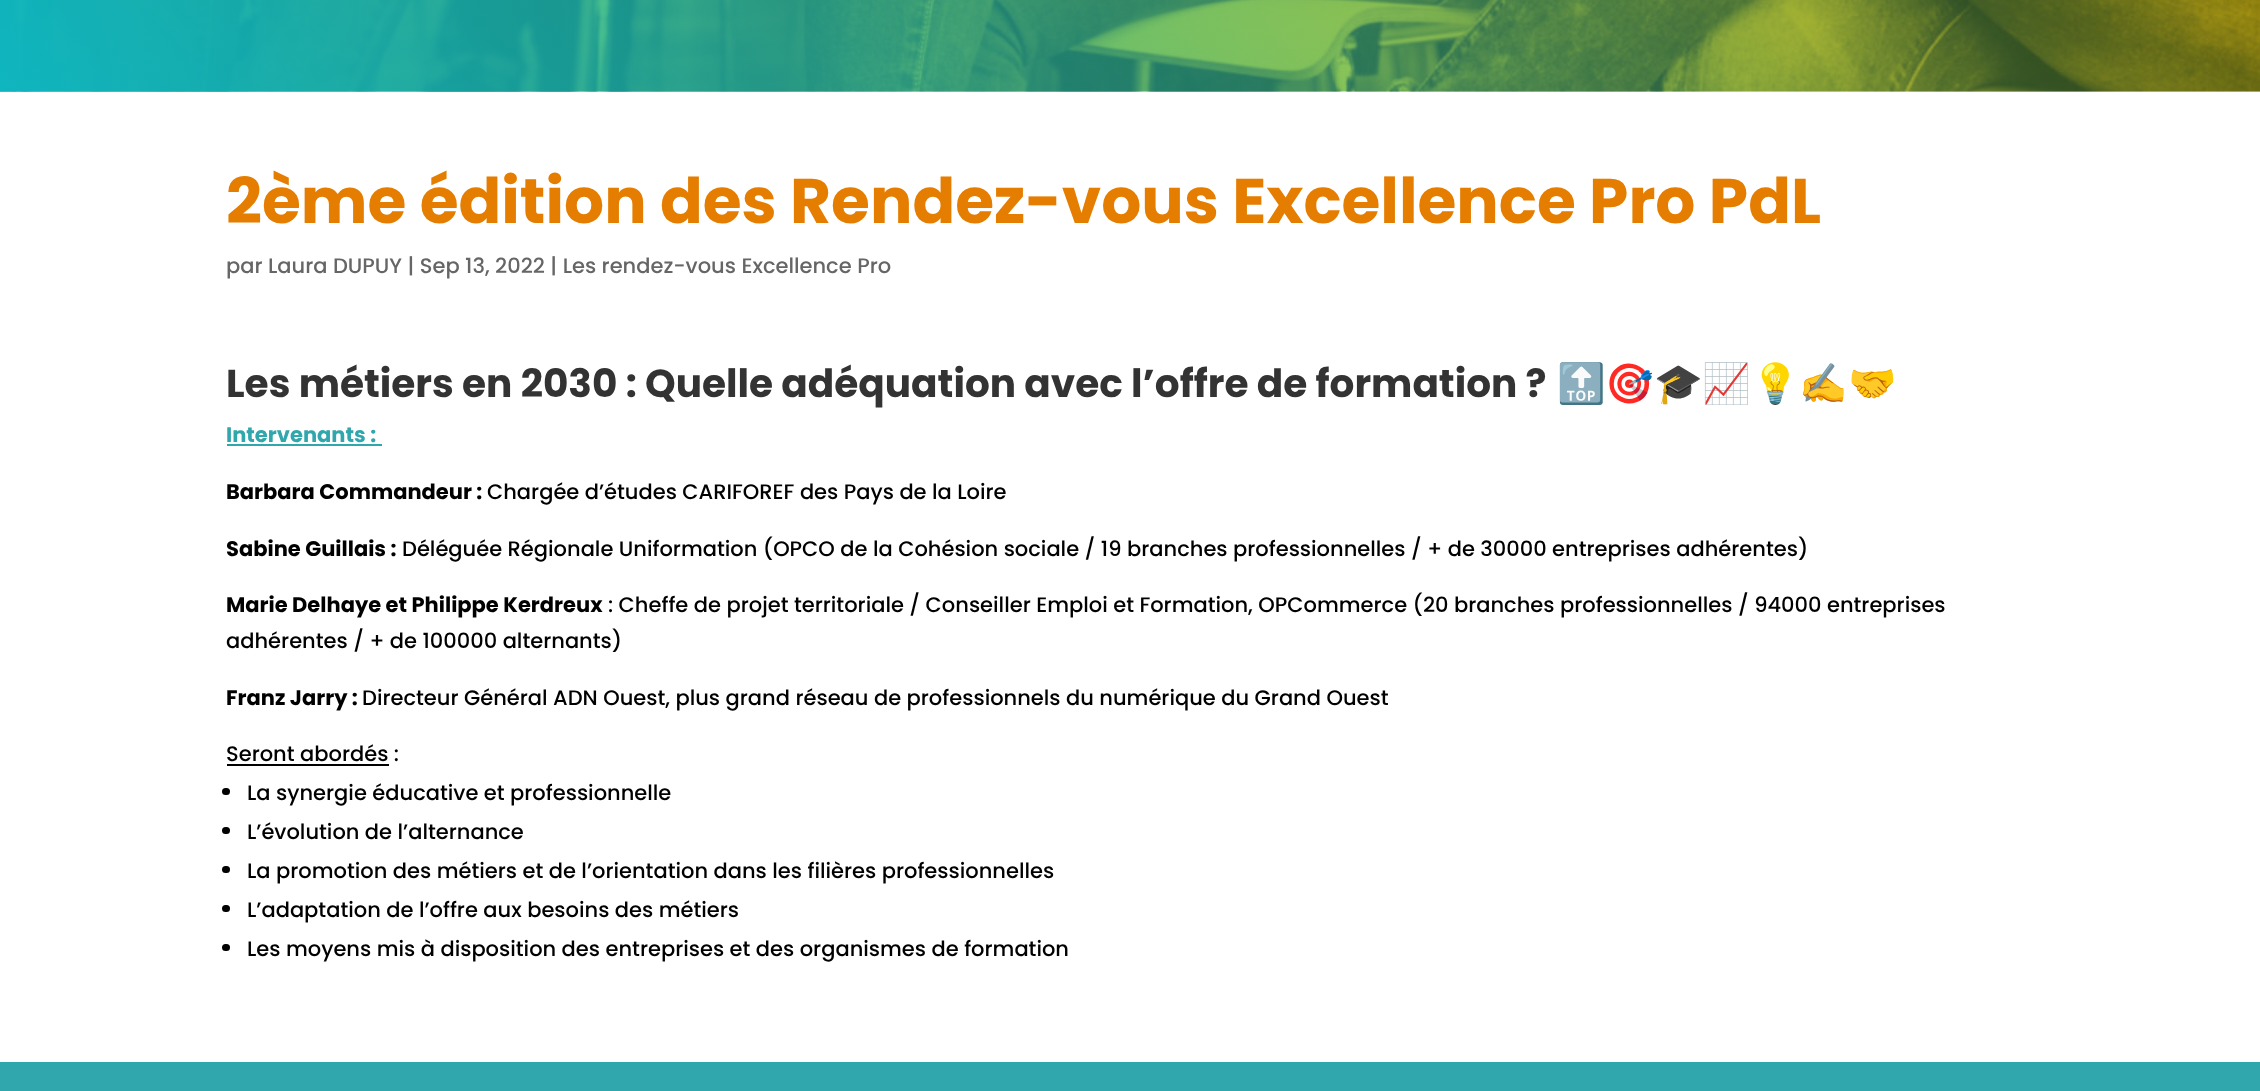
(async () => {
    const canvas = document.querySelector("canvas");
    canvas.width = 2260;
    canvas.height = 1091;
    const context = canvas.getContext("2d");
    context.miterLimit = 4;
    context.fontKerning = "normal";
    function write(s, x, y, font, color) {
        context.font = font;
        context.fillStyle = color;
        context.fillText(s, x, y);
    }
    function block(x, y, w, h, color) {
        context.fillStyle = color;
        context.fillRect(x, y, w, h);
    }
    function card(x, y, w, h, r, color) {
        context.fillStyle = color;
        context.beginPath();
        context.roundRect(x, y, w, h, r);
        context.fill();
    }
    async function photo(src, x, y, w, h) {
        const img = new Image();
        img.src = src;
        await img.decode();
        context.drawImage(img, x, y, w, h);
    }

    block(0, 0, 2260, 1091, "rgb(255, 255, 255)");
    await photo("media/1.png", 0, 0, 2260, 92);
    write("2ème édition des Rendez-vous Excellence Pro PdL", 226, 223, "bold 63px Poppins", "rgb(229, 126, 0)");
    write("par Laura DUPUY | Sep 13, 2022 | Les rendez-vous Excellence Pro", 226, 273, "500 21px Poppins", "rgb(102, 102, 102)");
    write("Les métiers en 2030 : Quelle adéquation avec l’offre de formation ?", 226, 397, "bold 39px Poppins", "rgb(51, 51, 51)");
    write("🔝🎯🎓📈💡✍🤝", 1557, 397, "39px Noto Color Emoji", "rgb(51, 51, 51)");
    write("Intervenants :", 226, 442, "bold 21px Poppins", "rgb(48, 166, 173)");
    block(227, 444, 155, 2, "rgb(48, 166, 173)");
    write("Barbara Commandeur :", 226, 499, "bold 21px Poppins", "rgb(0, 0, 0)");
    write("Chargée d’études CARIFOREF des Pays de la Loire", 487, 499, "500 21px Poppins", "rgb(0, 0, 0)");
    write("Sabine Guillais :", 226, 556, "bold 21px Poppins", "rgb(0, 0, 0)");
    write("Déléguée Régionale Uniformation (OPCO de la Cohésion sociale / 19 branches professionnelles / + de 30000 entreprises adhérentes)", 402, 556, "500 21px Poppins", "rgb(0, 0, 0)");
    write("Marie Delhaye et Philippe Kerdreux", 226, 612, "bold 21px Poppins", "rgb(0, 0, 0)");
    write(": Cheffe de projet territoriale / Conseiller Emploi et Formation, OPCommerce (20 branches professionnelles / 94000 entreprises", 608, 612, "500 21px Poppins", "rgb(0, 0, 0)");
    write("adhérentes / + de 100000 alternants)", 226, 648, "500 21px Poppins", "rgb(0, 0, 0)");
    write("Franz Jarry :", 226, 705, "bold 21px Poppins", "rgb(0, 0, 0)");
    write("Directeur Général ADN Ouest, plus grand réseau de professionnels du numérique du Grand Ouest", 362, 705, "500 21px Poppins", "rgb(0, 0, 0)");
    write("Seront abordés :", 226, 761, "500 21px Poppins", "rgb(0, 0, 0)");
    block(227, 764, 162, 2, "rgb(0, 0, 0)");
    card(222, 788, 8, 7, 3.5, "rgb(0, 0, 0)");
    write("La synergie éducative et professionnelle", 247, 800, "500 21px Poppins", "rgb(0, 0, 0)");
    card(222, 827, 8, 7, 3.5, "rgb(0, 0, 0)");
    write("L’évolution de l’alternance", 247, 839, "500 21px Poppins", "rgb(0, 0, 0)");
    card(222, 866, 8, 7, 3.5, "rgb(0, 0, 0)");
    write("La promotion des métiers et de l’orientation dans les filières professionnelles", 247, 878, "500 21px Poppins", "rgb(0, 0, 0)");
    card(222, 905, 8, 7, 3.5, "rgb(0, 0, 0)");
    write("L’adaptation de l’offre aux besoins des métiers", 247, 917, "500 21px Poppins", "rgb(0, 0, 0)");
    card(222, 944, 8, 7, 3.5, "rgb(0, 0, 0)");
    write("Les moyens mis à disposition des entreprises et des organismes de formation", 247, 956, "500 21px Poppins", "rgb(0, 0, 0)");
    block(0, 1062, 2260, 29, "rgb(48, 166, 173)");
})();
